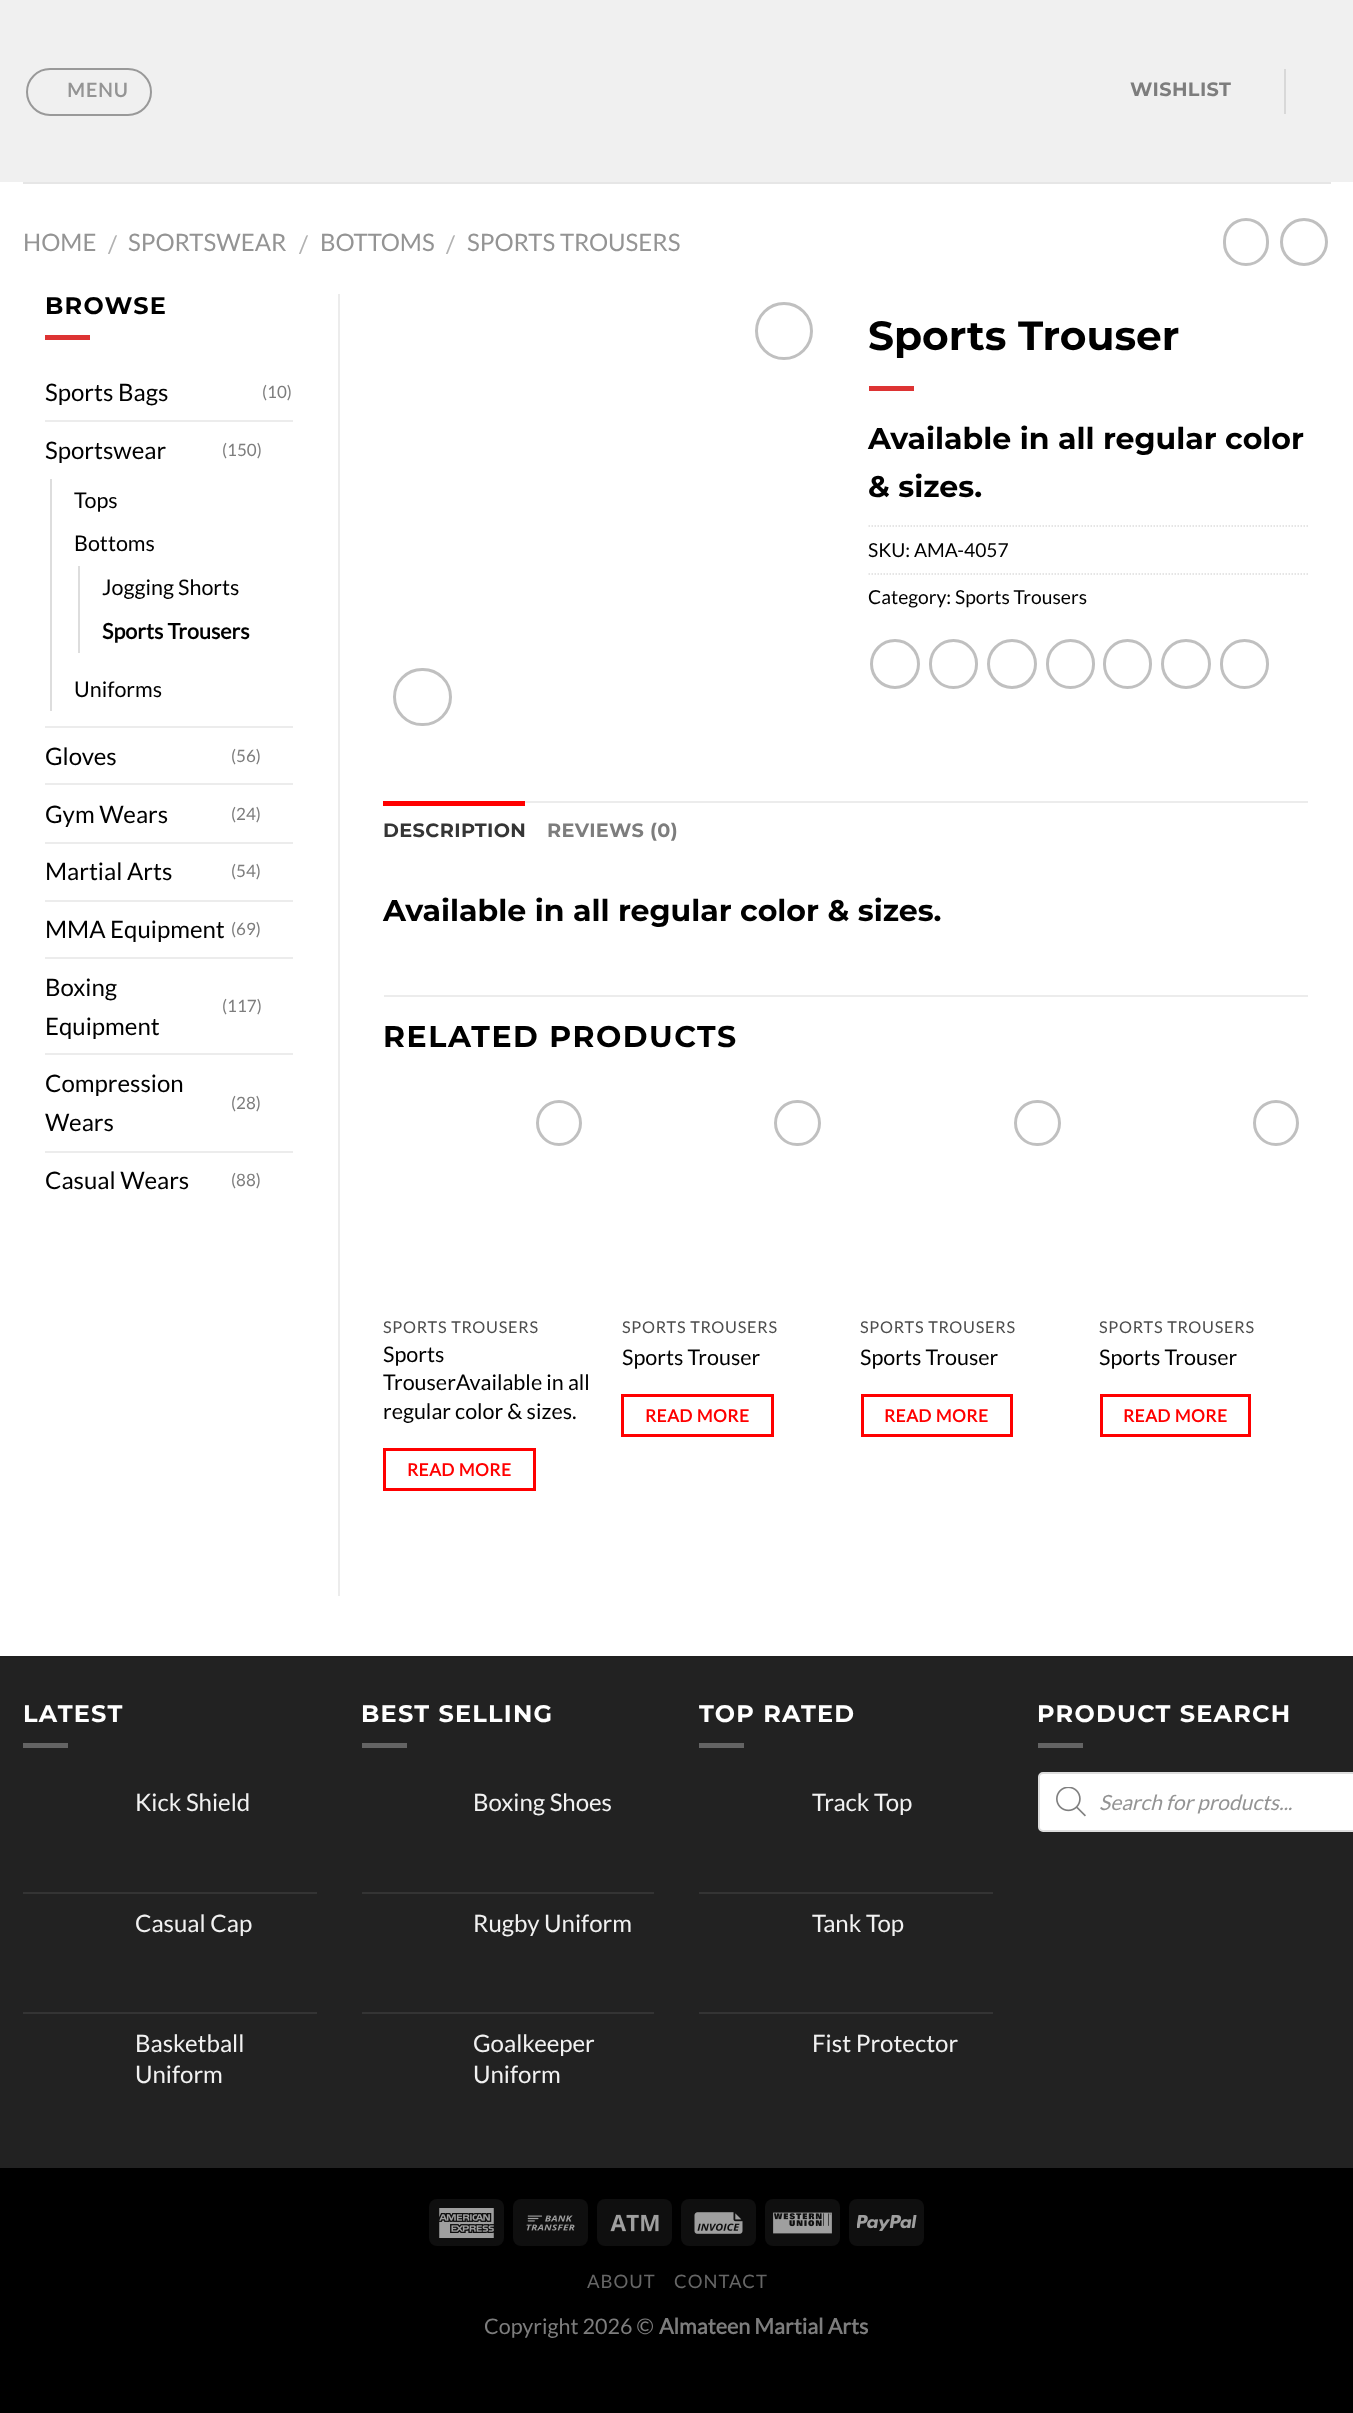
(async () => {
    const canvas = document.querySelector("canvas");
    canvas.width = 1353;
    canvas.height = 2413;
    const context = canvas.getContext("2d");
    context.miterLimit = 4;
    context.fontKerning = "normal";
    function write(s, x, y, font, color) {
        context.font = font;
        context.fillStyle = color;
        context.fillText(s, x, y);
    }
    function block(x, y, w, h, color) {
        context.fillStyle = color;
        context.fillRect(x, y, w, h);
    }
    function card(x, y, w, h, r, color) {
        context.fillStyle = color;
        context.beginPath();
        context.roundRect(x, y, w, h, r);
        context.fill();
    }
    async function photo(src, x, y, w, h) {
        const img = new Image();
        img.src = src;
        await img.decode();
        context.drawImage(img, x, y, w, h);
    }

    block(0, 0, 1353, 2413, "rgb(0, 0, 0)");
    block(0, 182, 1353, 1474, "rgb(255, 255, 255)");
    block(0, 0, 1353, 182, "rgb(240, 240, 240)");
    context.beginPath();
    context.roundRect(27, 69, 124, 46, 23);
    context.strokeStyle = "rgb(153, 153, 153)";
    context.lineWidth = 2;
    context.stroke();
    context.letterSpacing = "1px";
    write("MENU", 67, 97, "bold 19.25px Lato", "rgb(148, 148, 148)");
    context.letterSpacing = "0.4px";
    write("WISHLIST", 1130, 96, "bold 19.25px Montserrat", "rgb(125, 125, 125)");
    block(1284, 69, 2, 45, "rgb(216, 216, 216)");
    block(23, 182, 1308, 2, "rgb(230, 230, 230)");
    context.letterSpacing = "0px";
    write("HOME", 23, 251, "24px Lato", "rgb(148, 148, 148)");
    write("/", 108, 253, "24px Lato", "rgb(178, 178, 178)");
    write("SPORTSWEAR", 128, 251, "24px Lato", "rgb(148, 148, 148)");
    write("/", 299, 253, "24px Lato", "rgb(178, 178, 178)");
    write("BOTTOMS", 320, 251, "24px Lato", "rgb(148, 148, 148)");
    write("/", 446, 253, "24px Lato", "rgb(178, 178, 178)");
    write("SPORTS TROUSERS", 467, 251, "24px Lato", "rgb(148, 148, 148)");
    context.beginPath();
    context.roundRect(1224.5, 219.5, 43, 45, 21.5);
    context.strokeStyle = "rgb(192, 192, 192)";
    context.lineWidth = 3;
    context.stroke();
    context.beginPath();
    context.arc(1304, 242, 22.5, 0, Math.PI * 2);
    context.stroke();
    block(338, 294, 2, 1302, "rgb(236, 236, 236)");
    context.letterSpacing = "1.25px";
    write("BROWSE", 45, 314, "bold 24px Montserrat", "rgb(0, 0, 0)");
    block(45, 335, 45, 5, "rgb(221, 51, 51)");
    context.letterSpacing = "0px";
    write("Sports Bags", 45, 401, "24px Lato", "rgb(0, 0, 0)");
    write("(10)", 262, 398, "17px Lato", "rgb(125, 125, 125)");
    block(45, 420, 248, 2, "rgb(236, 236, 236)");
    write("Sportswear", 45, 459, "24px Lato", "rgb(0, 0, 0)");
    write("(150)", 222, 456, "17px Lato", "rgb(125, 125, 125)");
    block(50, 479, 2, 232, "rgb(221, 221, 221)");
    write("Tops", 74, 508, "21.5px Lato", "rgb(0, 0, 0)");
    write("Bottoms", 74, 551, "21.5px Lato", "rgb(0, 0, 0)");
    block(78, 566, 2, 87, "rgb(221, 221, 221)");
    write("Jogging Shorts", 102, 595, "21.5px Lato", "rgb(0, 0, 0)");
    write("Sports Trousers", 102, 639, "bold 21.5px Lato", "rgb(0, 0, 0)");
    write("Uniforms", 74, 697, "21.5px Lato", "rgb(0, 0, 0)");
    block(45, 726, 248, 2, "rgb(236, 236, 236)");
    write("Gloves", 45, 765, "24px Lato", "rgb(0, 0, 0)");
    write("(56)", 231, 762, "17px Lato", "rgb(125, 125, 125)");
    block(45, 783, 248, 2, "rgb(236, 236, 236)");
    write("Gym Wears", 45, 823, "24px Lato", "rgb(0, 0, 0)");
    write("(24)", 231, 820, "17px Lato", "rgb(125, 125, 125)");
    block(45, 842, 248, 2, "rgb(236, 236, 236)");
    write("Martial Arts", 45, 880, "24px Lato", "rgb(0, 0, 0)");
    write("(54)", 231, 877, "17px Lato", "rgb(125, 125, 125)");
    block(45, 900, 248, 2, "rgb(236, 236, 236)");
    write("MMA Equipment", 45, 938, "24px Lato", "rgb(0, 0, 0)");
    write("(69)", 231, 935, "17px Lato", "rgb(125, 125, 125)");
    block(45, 957, 248, 2, "rgb(236, 236, 236)");
    write("Boxing", 45, 996, "24px Lato", "rgb(0, 0, 0)");
    write("Equipment", 45, 1035, "24px Lato", "rgb(0, 0, 0)");
    write("(117)", 222, 1012, "17px Lato", "rgb(125, 125, 125)");
    block(45, 1053, 248, 2, "rgb(236, 236, 236)");
    write("Compression", 45, 1092, "24px Lato", "rgb(0, 0, 0)");
    write("Wears", 45, 1131, "24px Lato", "rgb(0, 0, 0)");
    write("(28)", 231, 1109, "17px Lato", "rgb(125, 125, 125)");
    block(45, 1151, 248, 2, "rgb(236, 236, 236)");
    write("Casual Wears", 45, 1189, "24px Lato", "rgb(0, 0, 0)");
    write("(88)", 231, 1186, "17px Lato", "rgb(125, 125, 125)");
    context.beginPath();
    context.arc(784, 331, 27.5, 0, Math.PI * 2);
    context.stroke();
    context.beginPath();
    context.roundRect(394.5, 669.5, 56, 55, 27.5);
    context.stroke();
    write("Sports Trouser", 868, 350, "bold 40.75px Montserrat", "rgb(0, 0, 0)");
    block(869, 386, 45, 5, "rgb(221, 51, 51)");
    write("Available in all regular color", 868, 449, "bold 30px Montserrat", "rgb(0, 0, 0)");
    write("& sizes.", 868, 497, "bold 30px Montserrat", "rgb(0, 0, 0)");
    context.beginPath();
    context.moveTo(868.5, 526);
    context.lineTo(1308, 526);
    context.strokeStyle = "rgb(221, 221, 221)";
    context.lineWidth = 1.5;
    context.setLineDash([1.5, 1.5]);
    context.stroke();
    write("SKU: AMA-4057", 868, 557, "19.25px Lato", "rgb(0, 0, 0)");
    context.beginPath();
    context.moveTo(868.5, 574);
    context.lineTo(1308, 574);
    context.stroke();
    write("Category: Sports Trousers", 868, 604, "19.25px Lato", "rgb(0, 0, 0)");
    context.beginPath();
    context.arc(895, 664, 23.5, 0, Math.PI * 2);
    context.strokeStyle = "rgb(192, 192, 192)";
    context.lineWidth = 3;
    context.setLineDash([]);
    context.stroke();
    context.beginPath();
    context.roundRect(930.5, 640.5, 46, 47, 23);
    context.stroke();
    context.beginPath();
    context.arc(1012, 664, 23.5, 0, Math.PI * 2);
    context.stroke();
    context.beginPath();
    context.roundRect(1047.5, 640.5, 46, 47, 23);
    context.stroke();
    context.beginPath();
    context.roundRect(1104.5, 640.5, 46, 47, 23);
    context.stroke();
    context.beginPath();
    context.arc(1186, 664, 23.5, 0, Math.PI * 2);
    context.stroke();
    context.beginPath();
    context.roundRect(1221.5, 640.5, 46, 47, 23);
    context.stroke();
    block(525, 801, 783, 2, "rgb(236, 236, 236)");
    block(383, 801, 142, 5, "rgb(255, 0, 0)");
    context.letterSpacing = "0.4px";
    write("DESCRIPTION", 383, 837, "bold 19.25px Montserrat", "rgb(53, 53, 53)");
    write("REVIEWS (0)", 547, 837, "bold 19.25px Montserrat", "rgb(125, 125, 125)");
    context.letterSpacing = "0px";
    write("Available in all regular color & sizes.", 383, 921, "bold 30px Montserrat", "rgb(0, 0, 0)");
    block(384, 995, 924, 2, "rgb(236, 236, 236)");
    context.letterSpacing = "1.5px";
    write("RELATED PRODUCTS", 383, 1047, "bold 30px Montserrat", "rgb(0, 0, 0)");
    context.beginPath();
    context.arc(559, 1123, 21.5, 0, Math.PI * 2);
    context.stroke();
    context.letterSpacing = "0.75px";
    write("SPORTS TROUSERS", 383, 1333, "16.25px Lato", "rgb(77, 77, 77)");
    context.letterSpacing = "0px";
    write("Sports", 383, 1362, "21.5px Lato", "rgb(0, 0, 0)");
    write("TrouserAvailable in all", 383, 1390, "21.5px Lato", "rgb(0, 0, 0)");
    write("regular color & sizes.", 383, 1419, "21.5px Lato", "rgb(0, 0, 0)");
    context.strokeStyle = "rgb(255, 0, 0)";
    context.strokeRect(384.5, 1449.5, 150, 40);
    context.letterSpacing = "0.5px";
    write("READ MORE", 407, 1476, "bold 17.25px Lato", "rgb(255, 0, 0)");
    context.beginPath();
    context.roundRect(775.5, 1101.5, 44, 43, 21.5);
    context.strokeStyle = "rgb(192, 192, 192)";
    context.stroke();
    context.letterSpacing = "0.75px";
    write("SPORTS TROUSERS", 622, 1333, "16.25px Lato", "rgb(77, 77, 77)");
    context.letterSpacing = "0px";
    write("Sports Trouser", 622, 1365, "21.5px Lato", "rgb(0, 0, 0)");
    context.strokeStyle = "rgb(255, 0, 0)";
    context.strokeRect(622.5, 1395.5, 150, 40);
    context.letterSpacing = "0.5px";
    write("READ MORE", 645, 1422, "bold 17.25px Lato", "rgb(255, 0, 0)");
    context.beginPath();
    context.roundRect(1015.5, 1101.5, 44, 43, 21.5);
    context.strokeStyle = "rgb(192, 192, 192)";
    context.stroke();
    context.letterSpacing = "0.75px";
    write("SPORTS TROUSERS", 860, 1333, "16.25px Lato", "rgb(77, 77, 77)");
    context.letterSpacing = "0px";
    write("Sports Trouser", 860, 1365, "21.5px Lato", "rgb(0, 0, 0)");
    context.strokeStyle = "rgb(255, 0, 0)";
    context.strokeRect(862.5, 1395.5, 149, 40);
    context.letterSpacing = "0.5px";
    write("READ MORE", 884, 1422, "bold 17.25px Lato", "rgb(255, 0, 0)");
    context.beginPath();
    context.arc(1276, 1123, 21.5, 0, Math.PI * 2);
    context.strokeStyle = "rgb(192, 192, 192)";
    context.stroke();
    context.letterSpacing = "0.75px";
    write("SPORTS TROUSERS", 1099, 1333, "16.25px Lato", "rgb(77, 77, 77)");
    context.letterSpacing = "0px";
    write("Sports Trouser", 1099, 1365, "21.5px Lato", "rgb(0, 0, 0)");
    context.strokeStyle = "rgb(255, 0, 0)";
    context.strokeRect(1101.5, 1395.5, 148, 40);
    context.letterSpacing = "0.5px";
    write("READ MORE", 1123, 1422, "bold 17.25px Lato", "rgb(255, 0, 0)");
    block(0, 1658, 1353, 510, "rgb(34, 34, 34)");
    block(0, 1656, 1353, 2, "rgb(32, 32, 32)");
    context.letterSpacing = "1.25px";
    write("LATEST", 23, 1722, "bold 24px Montserrat", "rgb(255, 255, 255)");
    block(23, 1743, 45, 5, "rgb(100, 100, 100)");
    context.letterSpacing = "0px";
    write("Kick Shield", 135, 1811, "24px Lato", "rgb(241, 241, 241)");
    block(23, 1892, 294, 2, "rgb(52, 52, 52)");
    write("Casual Cap", 135, 1932, "24px Lato", "rgb(241, 241, 241)");
    block(23, 2012, 294, 2, "rgb(52, 52, 52)");
    write("Basketball", 135, 2052, "24px Lato", "rgb(241, 241, 241)");
    write("Uniform", 135, 2083, "24px Lato", "rgb(241, 241, 241)");
    context.letterSpacing = "1.25px";
    write("BEST SELLING", 361, 1722, "bold 24px Montserrat", "rgb(255, 255, 255)");
    block(362, 1743, 45, 5, "rgb(100, 100, 100)");
    context.letterSpacing = "0px";
    write("Boxing Shoes", 473, 1811, "24px Lato", "rgb(241, 241, 241)");
    block(362, 1892, 292, 2, "rgb(52, 52, 52)");
    write("Rugby Uniform", 473, 1932, "24px Lato", "rgb(241, 241, 241)");
    block(362, 2012, 292, 2, "rgb(52, 52, 52)");
    write("Goalkeeper", 473, 2052, "24px Lato", "rgb(241, 241, 241)");
    write("Uniform", 473, 2083, "24px Lato", "rgb(241, 241, 241)");
    context.letterSpacing = "1.25px";
    write("TOP RATED", 699, 1722, "bold 24px Montserrat", "rgb(255, 255, 255)");
    block(699, 1743, 45, 5, "rgb(100, 100, 100)");
    context.letterSpacing = "0px";
    write("Track Top", 812, 1811, "24px Lato", "rgb(241, 241, 241)");
    block(699, 1892, 294, 2, "rgb(52, 52, 52)");
    write("Tank Top", 812, 1932, "24px Lato", "rgb(241, 241, 241)");
    block(699, 2012, 294, 2, "rgb(52, 52, 52)");
    write("Fist Protector", 812, 2052, "24px Lato", "rgb(241, 241, 241)");
    context.letterSpacing = "1.25px";
    write("PRODUCT SEARCH", 1037, 1722, "bold 24px Montserrat", "rgb(255, 255, 255)");
    block(1038, 1743, 45, 5, "rgb(100, 100, 100)");
    context.fillStyle = "rgb(255, 255, 255)";
    context.beginPath();
    context.roundRect(1039, 1773, 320, 58, 4);
    context.fill();
    context.strokeStyle = "rgb(221, 221, 221)";
    context.lineWidth = 2;
    context.stroke();
    await photo("media/1.png", 1056, 1787, 30, 30);
    context.letterSpacing = "0px";
    write("Search for products...", 1099, 1810, "italic 21px Lato", "rgb(148, 148, 148)");
    card(429, 2199, 75, 47, 8, "rgb(15, 15, 15)");
    await photo("media/2.png", 439, 2208, 55, 30);
    card(513, 2199, 75, 47, 8, "rgb(15, 15, 15)");
    await photo("media/3.png", 526, 2215, 49, 16);
    card(597, 2199, 75, 47, 8, "rgb(15, 15, 15)");
    await photo("media/4.png", 610, 2214, 49, 18);
    card(681, 2199, 75, 47, 8, "rgb(15, 15, 15)");
    await photo("media/5.png", 694, 2212, 49, 22);
    card(765, 2199, 75, 47, 8, "rgb(15, 15, 15)");
    await photo("media/6.png", 773, 2212, 59, 22);
    card(849, 2199, 75, 47, 8, "rgb(15, 15, 15)");
    await photo("media/7.png", 857, 2215, 60, 16);
    context.letterSpacing = "1px";
    write("ABOUT", 587, 2288, "18.5px Lato", "rgb(102, 102, 102)");
    write("CONTACT", 674, 2288, "18.5px Lato", "rgb(102, 102, 102)");
    context.letterSpacing = "0px";
    write("Copyright 2026 ©", 484, 2334, "21.5px Lato", "rgb(125, 125, 125)");
    write("Almateen Martial Arts", 659, 2334, "bold 21.5px Lato", "rgb(125, 125, 125)");
})();
